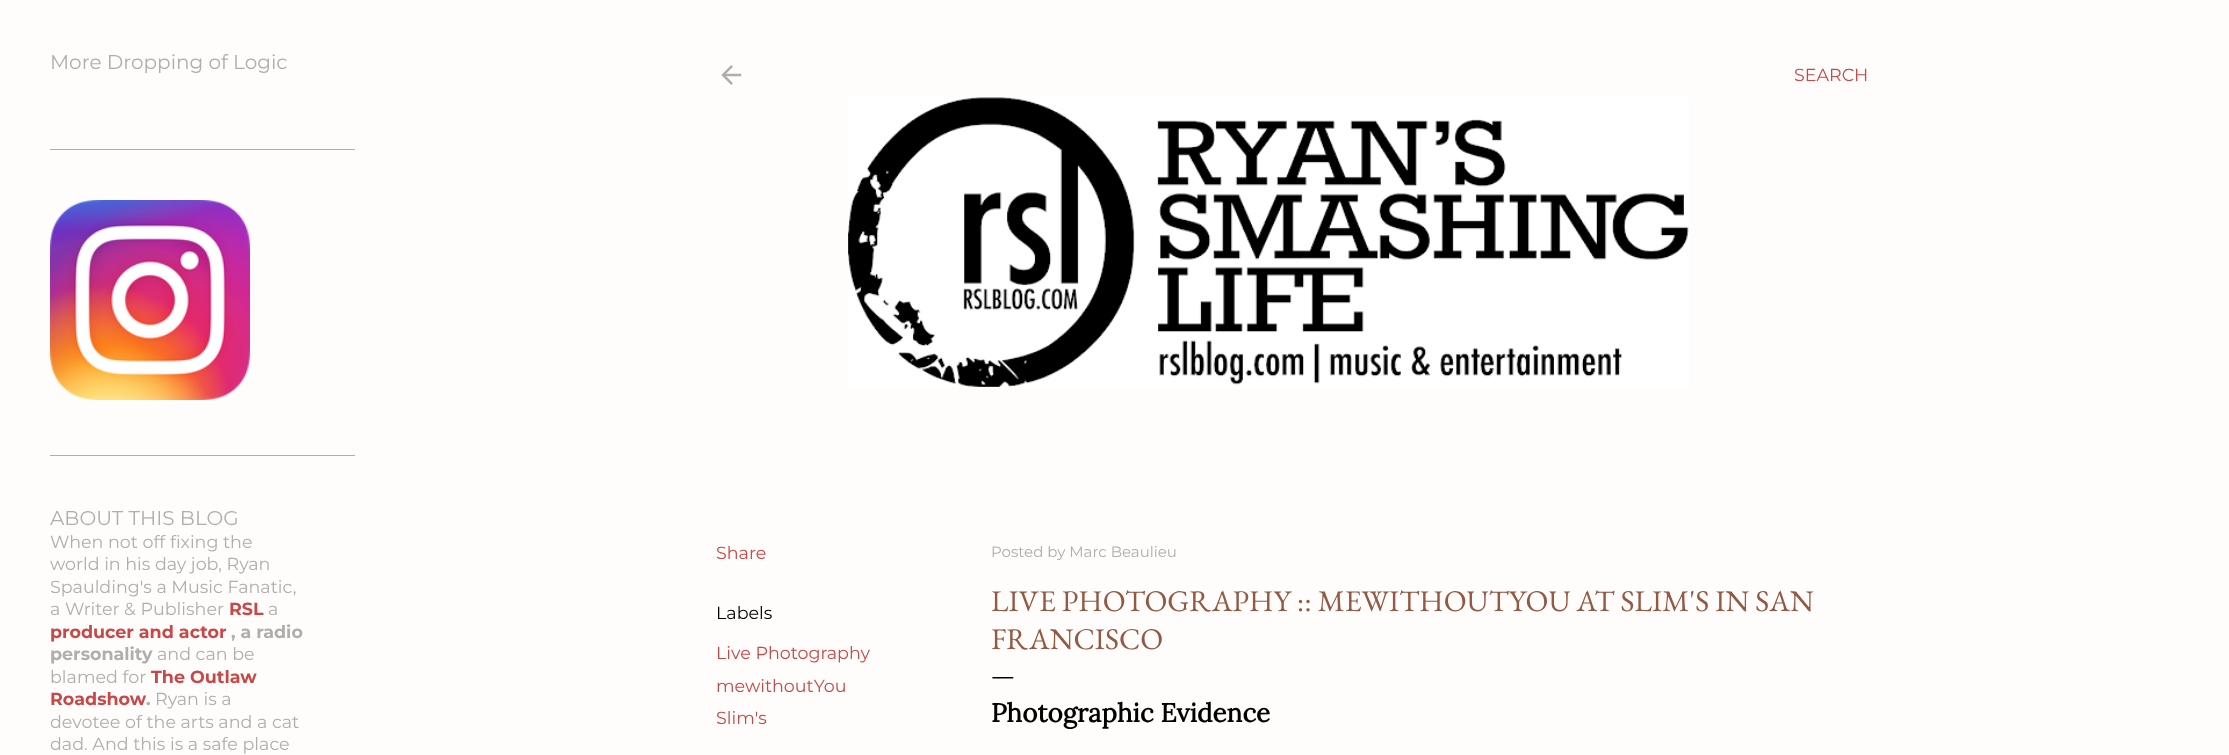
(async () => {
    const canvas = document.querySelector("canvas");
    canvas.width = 2229;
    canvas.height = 755;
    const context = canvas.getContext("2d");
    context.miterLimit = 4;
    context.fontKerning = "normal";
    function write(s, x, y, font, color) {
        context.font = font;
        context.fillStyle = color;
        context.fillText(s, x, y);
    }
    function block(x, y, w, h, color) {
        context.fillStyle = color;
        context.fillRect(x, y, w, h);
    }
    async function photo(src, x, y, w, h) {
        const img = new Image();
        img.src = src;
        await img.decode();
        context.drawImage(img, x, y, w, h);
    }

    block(0, 0, 2229, 755, "rgb(255, 253, 251)");
    write("More Dropping of Logic", 50, 69, "20px Montserrat", "rgb(175, 174, 173)");
    block(50, 149, 305, 1, "rgb(175, 174, 173)");
    await photo("media/1.png", 50, 200, 200, 200);
    block(50, 455, 305, 1, "rgb(175, 174, 173)");
    write("ABOUT THIS BLOG", 50, 525, "20px Montserrat", "rgb(175, 174, 173)");
    write("When not off fixing the", 50, 548, "17.5px Montserrat", "rgb(175, 174, 173)");
    write("world in his day job, Ryan", 50, 570, "17.5px Montserrat", "rgb(175, 174, 173)");
    write("Spaulding's a Music Fanatic,", 50, 593, "17.5px Montserrat", "rgb(175, 174, 173)");
    write("a Writer & Publisher", 50, 615, "17.5px Montserrat", "rgb(175, 174, 173)");
    write("RSL", 229, 615, "bold 17.5px Montserrat", "rgb(200, 72, 72)");
    write("a", 268, 615, "17.5px Montserrat", "rgb(175, 174, 173)");
    write("producer and actor", 50, 638, "bold 17.5px Montserrat", "rgb(200, 72, 72)");
    write(", a radio", 231, 638, "bold 17.5px Montserrat", "rgb(175, 174, 173)");
    write("personality", 50, 660, "bold 17.5px Montserrat", "rgb(175, 174, 173)");
    write("and can be", 157, 660, "17.5px Montserrat", "rgb(175, 174, 173)");
    write("blamed for", 50, 683, "17.5px Montserrat", "rgb(175, 174, 173)");
    write("The Outlaw", 151, 683, "bold 17.5px Montserrat", "rgb(200, 72, 72)");
    write("Roadshow", 50, 705, "bold 17.5px Montserrat", "rgb(200, 72, 72)");
    write(".", 146, 705, "bold 17.5px Montserrat", "rgb(175, 174, 173)");
    write("Ryan is a", 155, 705, "17.5px Montserrat", "rgb(175, 174, 173)");
    write("devotee of the arts and a cat", 50, 728, "17.5px Montserrat", "rgb(175, 174, 173)");
    write("dad. And this is a safe place", 50, 750, "17.5px Montserrat", "rgb(175, 174, 173)");
    await photo("media/2.png", 721, 65, 21, 20);
    write("SEARCH", 1794, 81, "17.5px Montserrat", "rgb(200, 72, 72)");
    await photo("media/3.png", 848, 97, 841, 290);
    write("Share", 716, 559, "17.5px Montserrat", "rgb(200, 72, 72)");
    write("Labels", 716, 619, "17.5px Montserrat", "rgb(0, 0, 0)");
    write("Live Photography", 716, 659, "17.5px Montserrat", "rgb(200, 72, 72)");
    write("mewithoutYou", 716, 692, "17.5px Montserrat", "rgb(200, 72, 72)");
    write("Slim's", 716, 724, "17.5px Montserrat", "rgb(200, 72, 72)");
    write("Posted by Marc Beaulieu", 991, 557, "15px Montserrat", "rgb(175, 174, 173)");
    write("LIVE PHOTOGRAPHY :: MEWITHOUTYOU AT SLIM'S IN SAN", 991, 611, "30px EB Garamond", "rgb(147, 89, 67)");
    write("FRANCISCO", 991, 649, "30px EB Garamond", "rgb(147, 89, 67)");
    write("—", 991, 683, "25px EB Garamond", "rgb(0, 0, 0)");
    write("Photographic Evidence", 991, 722, "bold 26px Lora", "rgb(0, 0, 0)");
})();
